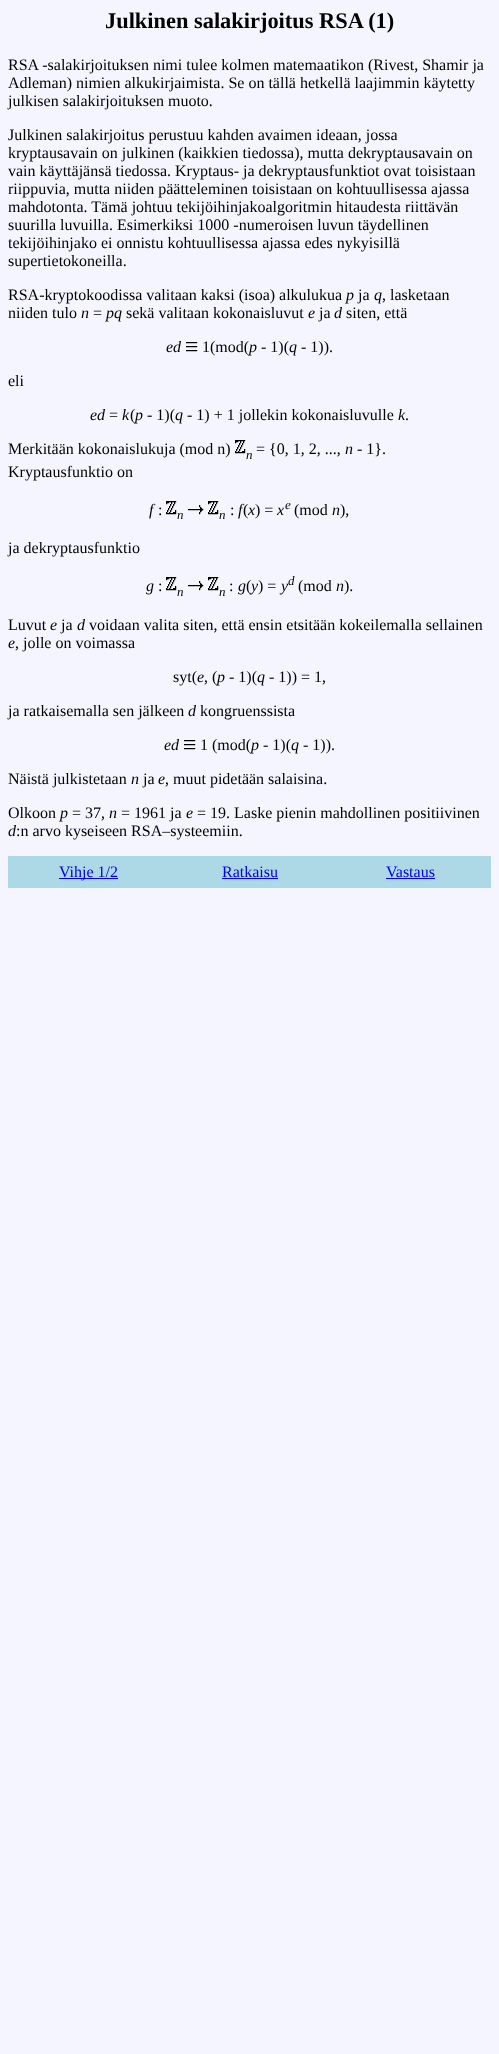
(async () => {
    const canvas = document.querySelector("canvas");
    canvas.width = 499;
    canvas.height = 2054;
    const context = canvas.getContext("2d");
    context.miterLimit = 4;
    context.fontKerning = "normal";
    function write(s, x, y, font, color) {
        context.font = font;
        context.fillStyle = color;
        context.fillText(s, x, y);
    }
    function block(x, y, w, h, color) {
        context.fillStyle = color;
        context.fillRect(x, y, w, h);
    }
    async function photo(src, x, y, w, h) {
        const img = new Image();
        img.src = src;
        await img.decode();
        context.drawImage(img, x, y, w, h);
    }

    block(0, 0, 499, 2054, "rgb(245, 245, 255)");
    write("Julkinen salakirjoitus RSA (1)", 105, 28, "bold 22.4px Liberation Serif", "rgb(0, 0, 0)");
    write("RSA -salakirjoituksen nimi tulee kolmen matemaatikon (Rivest, Shamir ja", 8, 70, "16px Liberation Serif", "rgb(0, 0, 0)");
    write("Adleman) nimien alkukirjaimista. Se on tällä hetkellä laajimmin käytetty", 8, 88, "16px Liberation Serif", "rgb(0, 0, 0)");
    write("julkisen salakirjoituksen muoto.", 8, 106, "16px Liberation Serif", "rgb(0, 0, 0)");
    write("Julkinen salakirjoitus perustuu kahden avaimen ideaan, jossa", 8, 140, "16px Liberation Serif", "rgb(0, 0, 0)");
    write("kryptausavain on julkinen (kaikkien tiedossa), mutta dekryptausavain on", 8, 158, "16px Liberation Serif", "rgb(0, 0, 0)");
    write("vain käyttäjänsä tiedossa. Kryptaus- ja dekryptausfunktiot ovat toisistaan", 8, 176, "16px Liberation Serif", "rgb(0, 0, 0)");
    write("riippuvia, mutta niiden päätteleminen toisistaan on kohtuullisessa ajassa", 8, 194, "16px Liberation Serif", "rgb(0, 0, 0)");
    write("mahdotonta. Tämä johtuu tekijöihinjakoalgoritmin hitaudesta riittävän", 8, 212, "16px Liberation Serif", "rgb(0, 0, 0)");
    write("suurilla luvuilla. Esimerkiksi 1000 -numeroisen luvun täydellinen", 8, 230, "16px Liberation Serif", "rgb(0, 0, 0)");
    write("tekijöihinjako ei onnistu kohtuullisessa ajassa edes nykyisillä", 8, 248, "16px Liberation Serif", "rgb(0, 0, 0)");
    write("supertietokoneilla.", 8, 266, "16px Liberation Serif", "rgb(0, 0, 0)");
    write("RSA-kryptokoodissa valitaan kaksi (isoa) alkulukua", 8, 300, "16px Liberation Serif", "rgb(0, 0, 0)");
    write("p", 346, 300, "italic 16px Liberation Serif", "rgb(0, 0, 0)");
    write("ja", 358, 300, "16px Liberation Serif", "rgb(0, 0, 0)");
    write("q", 374, 300, "italic 16px Liberation Serif", "rgb(0, 0, 0)");
    write(", lasketaan", 382, 300, "16px Liberation Serif", "rgb(0, 0, 0)");
    write("niiden tulo", 8, 318, "16px Liberation Serif", "rgb(0, 0, 0)");
    write("n", 81, 318, "italic 16px Liberation Serif", "rgb(0, 0, 0)");
    write("=", 93, 318, "16px Liberation Serif", "rgb(0, 0, 0)");
    write("pq", 106, 318, "italic 16px Liberation Serif", "rgb(0, 0, 0)");
    write("sekä valitaan kokonaisluvut", 126, 318, "16px Liberation Serif", "rgb(0, 0, 0)");
    write("e", 308, 318, "italic 16px Liberation Serif", "rgb(0, 0, 0)");
    write("ja", 319, 318, "16px Liberation Serif", "rgb(0, 0, 0)");
    write("d", 334, 318, "italic 16px Liberation Serif", "rgb(0, 0, 0)");
    write("siten, että", 346, 318, "16px Liberation Serif", "rgb(0, 0, 0)");
    write("ed", 166, 352, "italic 16px Liberation Serif", "rgb(0, 0, 0)");
    await photo("media/1.png", 186, 342, 12, 10);
    write("1(mod(", 202, 352, "16px Liberation Serif", "rgb(0, 0, 0)");
    write("p", 249, 352, "italic 16px Liberation Serif", "rgb(0, 0, 0)");
    write("- 1)(", 261, 352, "16px Liberation Serif", "rgb(0, 0, 0)");
    write("q", 289, 352, "italic 16px Liberation Serif", "rgb(0, 0, 0)");
    write("- 1)).", 301, 352, "16px Liberation Serif", "rgb(0, 0, 0)");
    write("eli", 8, 386, "16px Liberation Serif", "rgb(0, 0, 0)");
    write("ed", 90, 420, "italic 16px Liberation Serif", "rgb(0, 0, 0)");
    write("=", 109, 420, "16px Liberation Serif", "rgb(0, 0, 0)");
    write("k", 122, 420, "italic 16px Liberation Serif", "rgb(0, 0, 0)");
    write("(", 130, 420, "16px Liberation Serif", "rgb(0, 0, 0)");
    write("p", 135, 420, "italic 16px Liberation Serif", "rgb(0, 0, 0)");
    write("- 1)(", 147, 420, "16px Liberation Serif", "rgb(0, 0, 0)");
    write("q", 175, 420, "italic 16px Liberation Serif", "rgb(0, 0, 0)");
    write("- 1) + 1 jollekin kokonaisluvulle", 187, 420, "16px Liberation Serif", "rgb(0, 0, 0)");
    write("k", 398, 420, "italic 16px Liberation Serif", "rgb(0, 0, 0)");
    write(".", 405, 420, "16px Liberation Serif", "rgb(0, 0, 0)");
    write("Merkitään kokonaislukuja (mod n)", 8, 454, "16px Liberation Serif", "rgb(0, 0, 0)");
    await photo("media/2.png", 235, 440, 11, 14);
    write("= {0, 1, 2, ...,", 256, 454, "16px Liberation Serif", "rgb(0, 0, 0)");
    write("n", 345, 454, "italic 16px Liberation Serif", "rgb(0, 0, 0)");
    write("- 1}.", 357, 454, "16px Liberation Serif", "rgb(0, 0, 0)");
    write("n", 246, 459, "italic 13px Liberation Serif", "rgb(0, 0, 0)");
    write("Kryptausfunktio on", 8, 477, "16px Liberation Serif", "rgb(0, 0, 0)");
    write("f", 149, 515, "italic 16px Liberation Serif", "rgb(0, 0, 0)");
    write(":", 158, 515, "16px Liberation Serif", "rgb(0, 0, 0)");
    await photo("media/2.png", 166, 501, 11, 14);
    write("n", 177, 519, "italic 13px Liberation Serif", "rgb(0, 0, 0)");
    await photo("media/3.png", 188, 505, 16, 10);
    await photo("media/2.png", 208, 501, 11, 14);
    write("n", 219, 519, "italic 13px Liberation Serif", "rgb(0, 0, 0)");
    write(":", 230, 515, "16px Liberation Serif", "rgb(0, 0, 0)");
    write("f", 238, 515, "italic 16px Liberation Serif", "rgb(0, 0, 0)");
    write("(", 243, 515, "16px Liberation Serif", "rgb(0, 0, 0)");
    write("x", 248, 515, "italic 16px Liberation Serif", "rgb(0, 0, 0)");
    write(") =", 255, 515, "16px Liberation Serif", "rgb(0, 0, 0)");
    write("x", 277, 515, "italic 16px Liberation Serif", "rgb(0, 0, 0)");
    write("e", 285, 509, "italic 13px Liberation Serif", "rgb(0, 0, 0)");
    write("(mod", 294, 515, "16px Liberation Serif", "rgb(0, 0, 0)");
    write("n", 332, 515, "italic 16px Liberation Serif", "rgb(0, 0, 0)");
    write("),", 340, 515, "16px Liberation Serif", "rgb(0, 0, 0)");
    write("ja dekryptausfunktio", 8, 553, "16px Liberation Serif", "rgb(0, 0, 0)");
    write("g", 146, 591, "italic 16px Liberation Serif", "rgb(0, 0, 0)");
    write(":", 158, 591, "16px Liberation Serif", "rgb(0, 0, 0)");
    await photo("media/2.png", 166, 577, 11, 14);
    await photo("media/3.png", 188, 581, 16, 10);
    await photo("media/2.png", 208, 577, 11, 14);
    write(":", 229, 591, "16px Liberation Serif", "rgb(0, 0, 0)");
    write("g", 238, 591, "italic 16px Liberation Serif", "rgb(0, 0, 0)");
    write("(", 246, 591, "16px Liberation Serif", "rgb(0, 0, 0)");
    write("y", 251, 591, "italic 16px Liberation Serif", "rgb(0, 0, 0)");
    write(") =", 258, 591, "16px Liberation Serif", "rgb(0, 0, 0)");
    write("y", 281, 591, "italic 16px Liberation Serif", "rgb(0, 0, 0)");
    write("d", 288, 585, "italic 13px Liberation Serif", "rgb(0, 0, 0)");
    write("(mod", 298, 591, "16px Liberation Serif", "rgb(0, 0, 0)");
    write("n", 336, 591, "italic 16px Liberation Serif", "rgb(0, 0, 0)");
    write(").", 344, 591, "16px Liberation Serif", "rgb(0, 0, 0)");
    write("n", 177, 596, "italic 13px Liberation Serif", "rgb(0, 0, 0)");
    write("n", 219, 596, "italic 13px Liberation Serif", "rgb(0, 0, 0)");
    write("Luvut", 8, 630, "16px Liberation Serif", "rgb(0, 0, 0)");
    write("e", 50, 630, "italic 16px Liberation Serif", "rgb(0, 0, 0)");
    write("ja", 61, 630, "16px Liberation Serif", "rgb(0, 0, 0)");
    write("d", 77, 630, "italic 16px Liberation Serif", "rgb(0, 0, 0)");
    write("voidaan valita siten, että ensin etsitään kokeilemalla sellainen", 89, 630, "16px Liberation Serif", "rgb(0, 0, 0)");
    write("e", 8, 648, "italic 16px Liberation Serif", "rgb(0, 0, 0)");
    write(", jolle on voimassa", 15, 648, "16px Liberation Serif", "rgb(0, 0, 0)");
    write("syt(", 173, 682, "16px Liberation Serif", "rgb(0, 0, 0)");
    write("e", 197, 682, "italic 16px Liberation Serif", "rgb(0, 0, 0)");
    write(", (", 204, 682, "16px Liberation Serif", "rgb(0, 0, 0)");
    write("p", 217, 682, "italic 16px Liberation Serif", "rgb(0, 0, 0)");
    write("- 1)(", 229, 682, "16px Liberation Serif", "rgb(0, 0, 0)");
    write("q", 257, 682, "italic 16px Liberation Serif", "rgb(0, 0, 0)");
    write("- 1)) = 1,", 269, 682, "16px Liberation Serif", "rgb(0, 0, 0)");
    write("ja ratkaisemalla sen jälkeen", 8, 716, "16px Liberation Serif", "rgb(0, 0, 0)");
    write("d", 188, 716, "italic 16px Liberation Serif", "rgb(0, 0, 0)");
    write("kongruenssista", 200, 716, "16px Liberation Serif", "rgb(0, 0, 0)");
    write("ed", 164, 750, "italic 16px Liberation Serif", "rgb(0, 0, 0)");
    await photo("media/1.png", 184, 740, 12, 10);
    write("1 (mod(", 200, 750, "16px Liberation Serif", "rgb(0, 0, 0)");
    write("p", 251, 750, "italic 16px Liberation Serif", "rgb(0, 0, 0)");
    write("- 1)(", 263, 750, "16px Liberation Serif", "rgb(0, 0, 0)");
    write("q", 291, 750, "italic 16px Liberation Serif", "rgb(0, 0, 0)");
    write("- 1)).", 303, 750, "16px Liberation Serif", "rgb(0, 0, 0)");
    write("Näistä julkistetaan", 8, 784, "16px Liberation Serif", "rgb(0, 0, 0)");
    write("n", 131, 784, "italic 16px Liberation Serif", "rgb(0, 0, 0)");
    write("ja", 143, 784, "16px Liberation Serif", "rgb(0, 0, 0)");
    write("e", 158, 784, "italic 16px Liberation Serif", "rgb(0, 0, 0)");
    write(", muut pidetään salaisina.", 165, 784, "16px Liberation Serif", "rgb(0, 0, 0)");
    write("Olkoon", 8, 818, "16px Liberation Serif", "rgb(0, 0, 0)");
    write("p", 60, 818, "italic 16px Liberation Serif", "rgb(0, 0, 0)");
    write("= 37,", 72, 818, "16px Liberation Serif", "rgb(0, 0, 0)");
    write("n", 109, 818, "italic 16px Liberation Serif", "rgb(0, 0, 0)");
    write("= 1961 ja", 121, 818, "16px Liberation Serif", "rgb(0, 0, 0)");
    write("e", 186, 818, "italic 16px Liberation Serif", "rgb(0, 0, 0)");
    write("= 19. Laske pienin mahdollinen positiivinen", 197, 818, "16px Liberation Serif", "rgb(0, 0, 0)");
    write("d", 8, 836, "italic 16px Liberation Serif", "rgb(0, 0, 0)");
    write(":n arvo kyseiseen RSA–systeemiin.", 16, 836, "16px Liberation Serif", "rgb(0, 0, 0)");
    block(8, 856, 483, 32, "rgb(173, 216, 230)");
    block(59, 878, 59, 1, "rgb(0, 0, 238)");
    write("Vihje 1/2", 59, 877, "16px Liberation Serif", "rgb(0, 0, 238)");
    write("Ratkaisu", 222, 877, "16px Liberation Serif", "rgb(0, 0, 238)");
    block(222, 878, 56, 1, "rgb(0, 0, 238)");
    write("Vastaus", 386, 877, "16px Liberation Serif", "rgb(0, 0, 238)");
    block(386, 878, 49, 1, "rgb(0, 0, 238)");
})();
